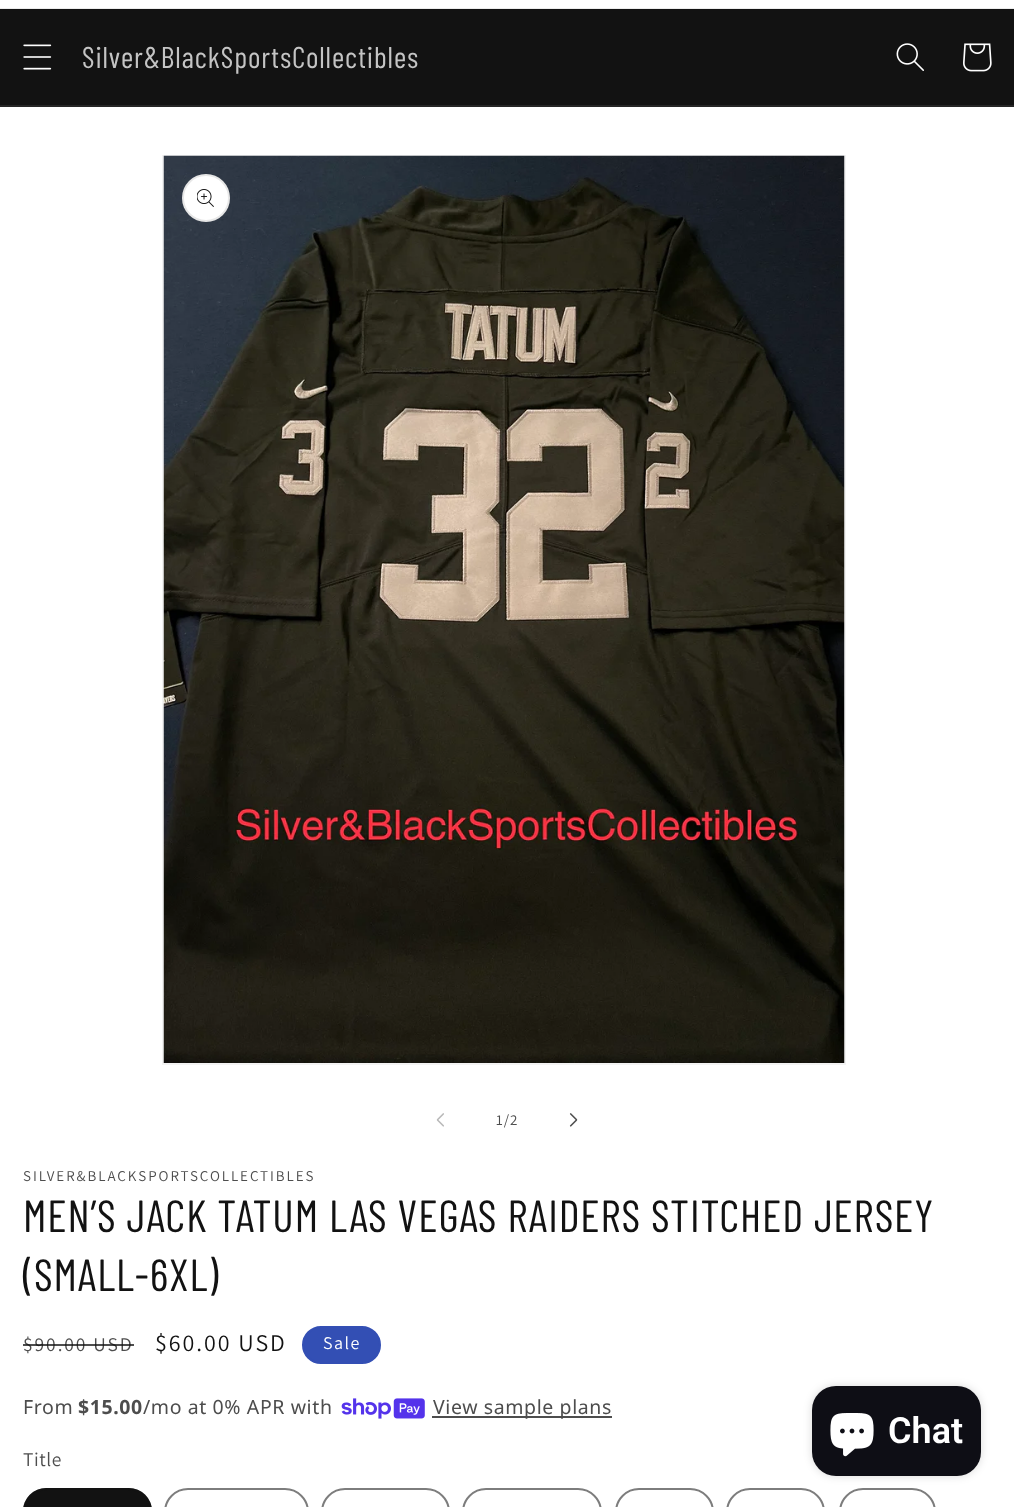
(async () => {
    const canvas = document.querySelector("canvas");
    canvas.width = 1014;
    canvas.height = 1507;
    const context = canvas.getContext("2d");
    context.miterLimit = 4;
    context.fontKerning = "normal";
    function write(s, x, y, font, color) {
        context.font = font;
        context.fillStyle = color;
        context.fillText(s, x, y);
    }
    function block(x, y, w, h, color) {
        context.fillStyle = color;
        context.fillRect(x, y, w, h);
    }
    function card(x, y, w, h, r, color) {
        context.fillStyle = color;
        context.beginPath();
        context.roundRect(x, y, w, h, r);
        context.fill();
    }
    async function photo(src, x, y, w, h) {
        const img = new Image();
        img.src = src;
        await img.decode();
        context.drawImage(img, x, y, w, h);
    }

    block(0, 0, 1014, 1507, "rgb(255, 255, 255)");
    block(0, 8, 1014, 1, "rgb(236, 236, 236)");
    block(0, 9, 1014, 96, "rgb(18, 18, 18)");
    block(0, 105, 1014, 2, "rgb(37, 37, 37)");
    await photo("media/1.png", 23, 44, 29, 26);
    context.letterSpacing = "0.9px";
    write("Silver&BlackSportsCollectibles", 82, 68, "30px Barlow Condensed", "rgb(196, 196, 196)");
    await photo("media/2.png", 896, 43, 28, 28);
    await photo("media/3.png", 963, 43, 29, 29);
    context.strokeStyle = "rgb(243, 243, 243)";
    context.lineWidth = 2;
    context.strokeRect(163, 156, 682, 908);
    await photo("media/4.png", 163, 155, 682, 908);
    context.fillStyle = "rgb(255, 255, 255)";
    context.beginPath();
    context.arc(206, 198, 24, 0, Math.PI * 2);
    context.fill();
    context.beginPath();
    context.arc(206, 198, 23, 0, Math.PI * 2);
    context.strokeStyle = "rgba(18, 18, 18, 0.1)";
    context.stroke();
    await photo("media/5.png", 197, 189, 17, 18);
    await photo("media/6.png", 436, 1113, 8, 14);
    context.letterSpacing = "1px";
    write("1/2", 496, 1125, "15px Assistant", "rgb(77, 77, 77)");
    await photo("media/7.png", 569, 1113, 9, 14);
    context.letterSpacing = "1.95px";
    write("SILVER&BLACKSPORTSCOLLECTIBLES", 23, 1181, "15px Assistant", "rgb(77, 77, 77)");
    context.letterSpacing = "0.9px";
    write("MEN’S JACK TATUM LAS VEGAS RAIDERS STITCHED JERSEY", 23, 1232, "45px Barlow Condensed", "rgb(18, 18, 18)");
    write("(SMALL-6XL)", 23, 1291, "45px Barlow Condensed", "rgb(18, 18, 18)");
    context.letterSpacing = "1.95px";
    write("$90.00 USD", 23, 1351, "19.5px Assistant", "rgb(77, 77, 77)");
    block(23, 1344, 111, 2, "rgba(18, 18, 18, 0.75)");
    write("$60.00 USD", 155, 1351, "24px Assistant", "rgb(18, 18, 18)");
    context.fillStyle = "rgb(51, 79, 180)";
    context.beginPath();
    context.roundRect(303, 1327, 77, 36, 18);
    context.fill();
    context.strokeStyle = "rgb(51, 79, 180)";
    context.stroke();
    context.letterSpacing = "1.5px";
    write("Sale", 323, 1349, "18px Assistant", "rgb(255, 255, 255)");
    context.letterSpacing = "0.6px";
    write("From", 23, 1414, "19.5px Noto Sans", "rgb(77, 77, 77)");
    write("$15.00", 78, 1414, "bold 19.5px Noto Sans", "rgb(77, 77, 77)");
    write("/mo at 0% APR with", 143, 1414, "19.5px Noto Sans", "rgb(77, 77, 77)");
    await photo("media/8.png", 341, 1398, 84, 21);
    block(432, 1416, 180, 2, "rgb(77, 77, 77)");
    write("View sample plans", 433, 1414, "19.5px Noto Sans", "rgb(77, 77, 77)");
    write("Title", 23, 1466, "19.5px Assistant", "rgb(77, 77, 77)");
    card(23, 1488, 129, 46, 27, "rgb(18, 18, 18)");
    context.beginPath();
    context.roundRect(24, 1489, 127, 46, 26);
    context.strokeStyle = "rgba(18, 18, 18, 0.55)";
    context.stroke();
    context.beginPath();
    context.roundRect(165, 1489, 143, 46, 26);
    context.strokeStyle = "rgb(125, 125, 125)";
    context.stroke();
    context.beginPath();
    context.roundRect(322, 1489, 127, 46, 26);
    context.stroke();
    context.beginPath();
    context.roundRect(463, 1489, 138, 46, 26);
    context.stroke();
    context.beginPath();
    context.roundRect(616, 1489, 97, 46, 26);
    context.stroke();
    context.beginPath();
    context.roundRect(727, 1489, 97, 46, 26);
    context.stroke();
    context.beginPath();
    context.roundRect(840, 1489, 95, 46, 26);
    context.stroke();
    context.fillStyle = "rgba(0, 0, 0, 0.15)";
    context.filter = "blur(4px)";
    context.beginPath();
    context.roundRect(812, 1386, 169, 90, 24);
    context.fill();
    context.filter = "none";
    card(812, 1386, 169, 90, 24, "rgb(14, 14, 21)");
    await photo("media/9.png", 830, 1413, 44, 44);
    context.letterSpacing = "0px";
    write("Chat", 888, 1443, "600 36px Roboto", "rgb(255, 255, 255)");
})();
